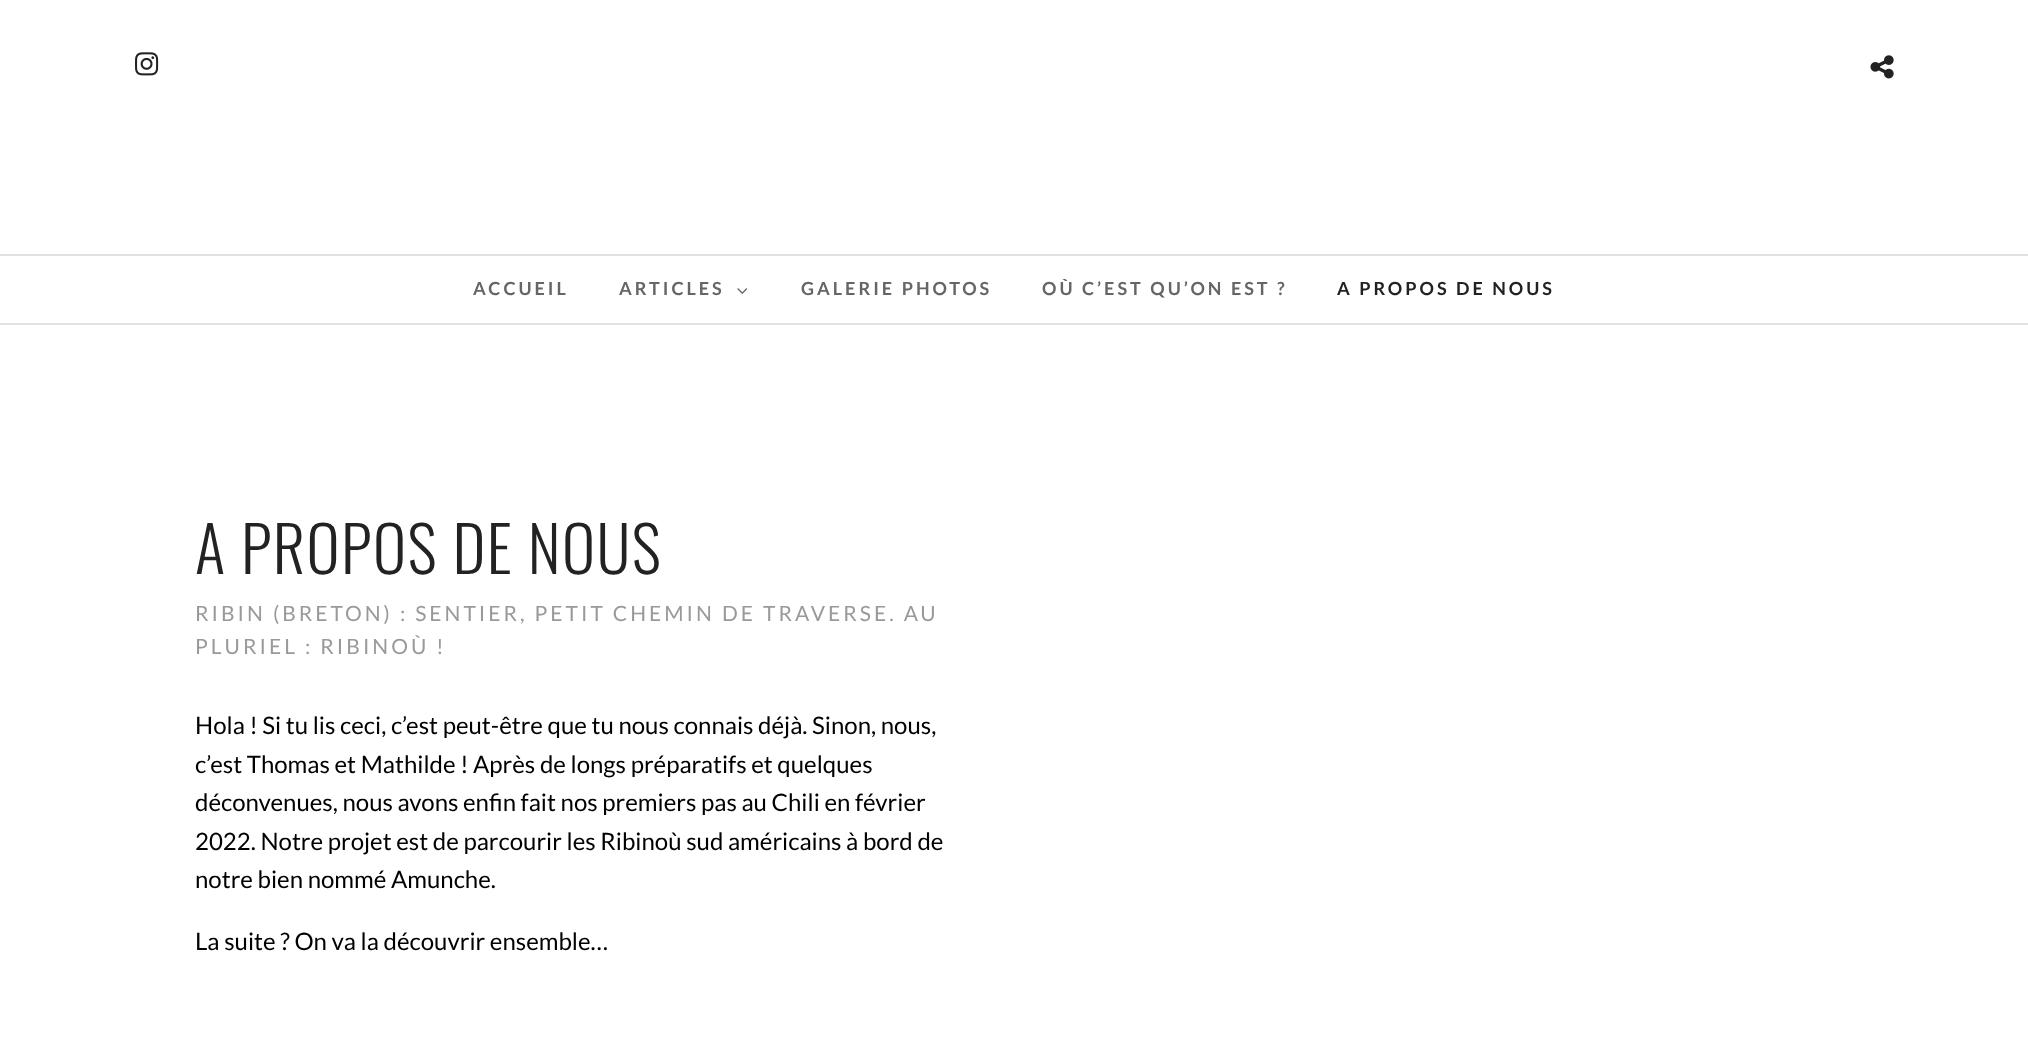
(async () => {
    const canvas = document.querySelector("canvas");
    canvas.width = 2028;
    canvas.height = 1042;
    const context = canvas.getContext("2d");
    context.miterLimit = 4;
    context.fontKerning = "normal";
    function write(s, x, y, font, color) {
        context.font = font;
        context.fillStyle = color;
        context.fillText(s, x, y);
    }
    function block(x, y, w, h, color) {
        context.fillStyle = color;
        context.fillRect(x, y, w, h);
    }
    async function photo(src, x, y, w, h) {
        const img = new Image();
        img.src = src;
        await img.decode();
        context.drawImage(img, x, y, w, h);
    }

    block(0, 0, 2028, 1042, "rgb(255, 255, 255)");
    block(0, 323, 2028, 2, "rgb(225, 225, 225)");
    block(0, 254, 2028, 2, "rgb(225, 225, 225)");
    await photo("media/1.png", 135, 52, 24, 24);
    await photo("media/2.png", 1870, 55, 24, 24);
    context.letterSpacing = "3px";
    write("ACCUEIL", 473, 295, "bold 18px Lato", "rgb(102, 102, 102)");
    write("ARTICLES", 619, 295, "bold 18px Lato", "rgb(102, 102, 102)");
    await photo("media/3.png", 737, 288, 11, 6);
    write("GALERIE PHOTOS", 801, 295, "bold 18px Lato", "rgb(102, 102, 102)");
    write("OÙ C’EST QU’ON EST ?", 1042, 295, "bold 18px Lato", "rgb(102, 102, 102)");
    write("A PROPOS DE NOUS", 1337, 295, "bold 18px Lato", "rgb(34, 34, 34)");
    context.letterSpacing = "1.5px";
    write("A PROPOS DE NOUS", 195, 574, "300 63px Oswald", "rgb(34, 34, 34)");
    context.letterSpacing = "3px";
    write("RIBIN (BRETON) : SENTIER, PETIT CHEMIN DE TRAVERSE. AU", 195, 621, "21px Lato", "rgb(153, 153, 153)");
    write("PLURIEL : RIBINOÙ !", 195, 654, "21px Lato", "rgb(153, 153, 153)");
    context.letterSpacing = "0px";
    write("Hola ! Si tu lis ceci, c’est peut-être que tu nous connais déjà. Sinon, nous,", 195, 734, "24px Lato", "rgb(0, 0, 0)");
    write("c’est Thomas et Mathilde ! Après de longs préparatifs et quelques", 195, 773, "24px Lato", "rgb(0, 0, 0)");
    write("déconvenues, nous avons enfin fait nos premiers pas au Chili en février", 195, 811, "24px Lato", "rgb(0, 0, 0)");
    write("2022. Notre projet est de parcourir les Ribinoù sud américains à bord de", 195, 850, "24px Lato", "rgb(0, 0, 0)");
    write("notre bien nommé Amunche.", 195, 888, "24px Lato", "rgb(0, 0, 0)");
    write("La suite ? On va la découvrir ensemble…", 195, 950, "24px Lato", "rgb(0, 0, 0)");
})();
